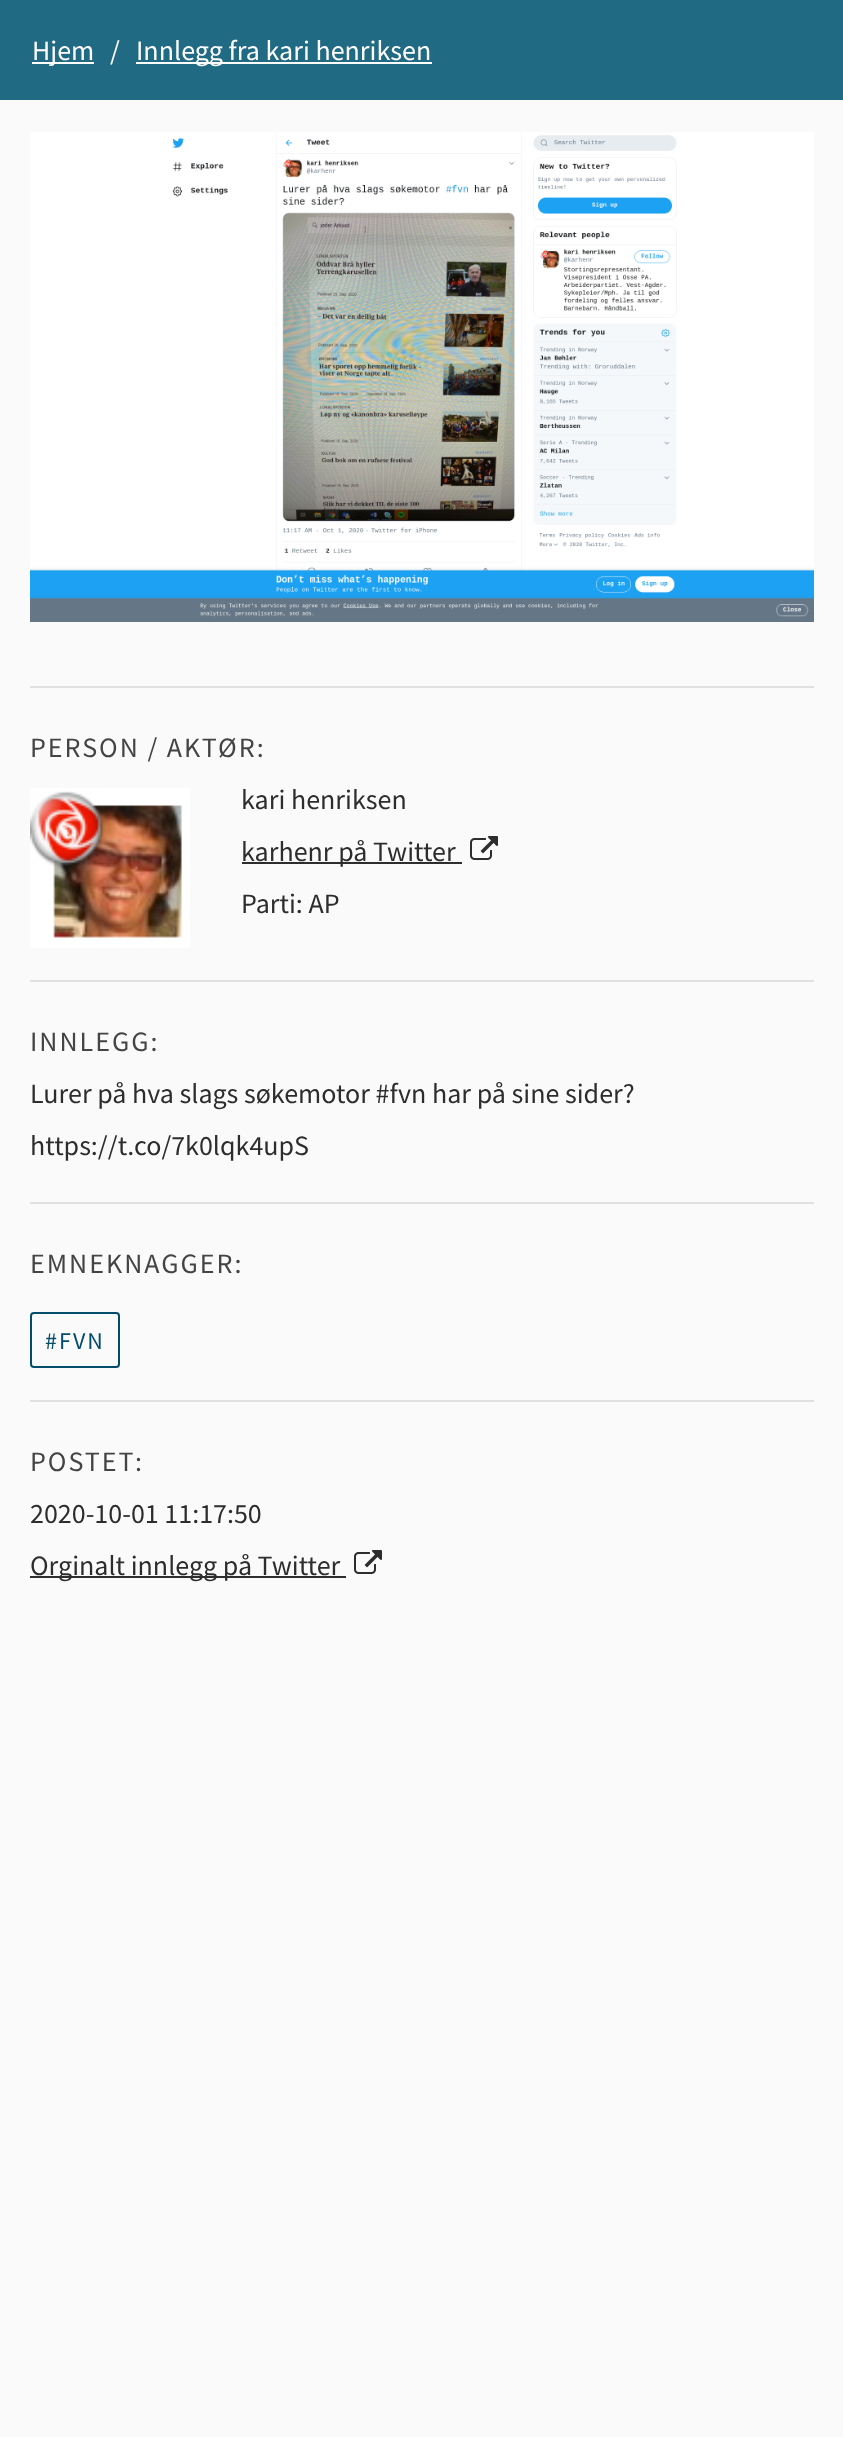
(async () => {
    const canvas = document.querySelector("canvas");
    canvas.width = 843;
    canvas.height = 2437;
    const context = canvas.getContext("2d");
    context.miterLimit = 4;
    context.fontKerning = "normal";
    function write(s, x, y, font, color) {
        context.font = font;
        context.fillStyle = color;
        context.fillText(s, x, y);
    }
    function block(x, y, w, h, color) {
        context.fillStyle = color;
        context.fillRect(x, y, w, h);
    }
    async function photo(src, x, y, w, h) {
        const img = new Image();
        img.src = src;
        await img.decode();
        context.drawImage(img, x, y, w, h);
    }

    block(0, 0, 843, 2437, "rgb(250, 250, 250)");
    block(0, 0, 843, 100, "rgb(33, 106, 132)");
    block(32, 62, 62, 2, "rgb(255, 255, 255)");
    write("Hjem", 32, 60, "28px Source Sans Pro", "rgb(255, 255, 255)");
    write("/", 110, 60, "28px Source Sans Pro", "rgb(255, 255, 255)");
    block(136, 62, 296, 2, "rgb(255, 255, 255)");
    write("Innlegg fra kari henriksen", 136, 60, "28px Source Sans Pro", "rgb(255, 255, 255)");
    await photo("media/1.png", 30, 132, 784, 490);
    block(30, 686, 784, 2, "rgb(225, 225, 225)");
    context.letterSpacing = "2px";
    write("PERSON / AKTØR:", 30, 757, "28px Source Sans Pro", "rgb(68, 68, 68)");
    await photo("media/2.png", 30, 788, 160, 160);
    context.letterSpacing = "0px";
    write("kari henriksen", 241, 809, "28px Source Sans Pro", "rgb(45, 45, 45)");
    block(242, 862, 220, 2, "rgb(45, 45, 45)");
    write("karhenr på Twitter", 241, 861, "28px Source Sans Pro", "rgb(45, 45, 45)");
    await photo("media/3.png", 470, 836, 28, 24);
    write("Parti: AP", 241, 913, "28px Source Sans Pro", "rgb(45, 45, 45)");
    block(30, 980, 784, 2, "rgb(225, 225, 225)");
    context.letterSpacing = "2px";
    write("INNLEGG:", 30, 1051, "28px Source Sans Pro", "rgb(68, 68, 68)");
    context.letterSpacing = "0px";
    write("Lurer på hva slags søkemotor #fvn har på sine sider?", 30, 1103, "28px Source Sans Pro", "rgb(45, 45, 45)");
    write("https://t.co/7k0lqk4upS", 30, 1155, "28px Source Sans Pro", "rgb(45, 45, 45)");
    block(30, 1202, 784, 2, "rgb(225, 225, 225)");
    context.letterSpacing = "2px";
    write("EMNEKNAGGER:", 30, 1273, "28px Source Sans Pro", "rgb(68, 68, 68)");
    context.beginPath();
    context.roundRect(31, 1313, 88, 54, 3);
    context.strokeStyle = "rgb(3, 76, 107)";
    context.lineWidth = 2;
    context.stroke();
    write("#FVN", 45, 1349, "24px Source Sans Pro", "rgb(3, 76, 107)");
    block(30, 1400, 784, 2, "rgb(225, 225, 225)");
    write("POSTET:", 30, 1471, "28px Source Sans Pro", "rgb(68, 68, 68)");
    context.letterSpacing = "0px";
    write("2020-10-01 11:17:50", 30, 1523, "28px Source Sans Pro", "rgb(45, 45, 45)");
    block(30, 1576, 316, 2, "rgb(45, 45, 45)");
    write("Orginalt innlegg på Twitter", 30, 1575, "28px Source Sans Pro", "rgb(45, 45, 45)");
    await photo("media/3.png", 354, 1550, 28, 24);
})();
